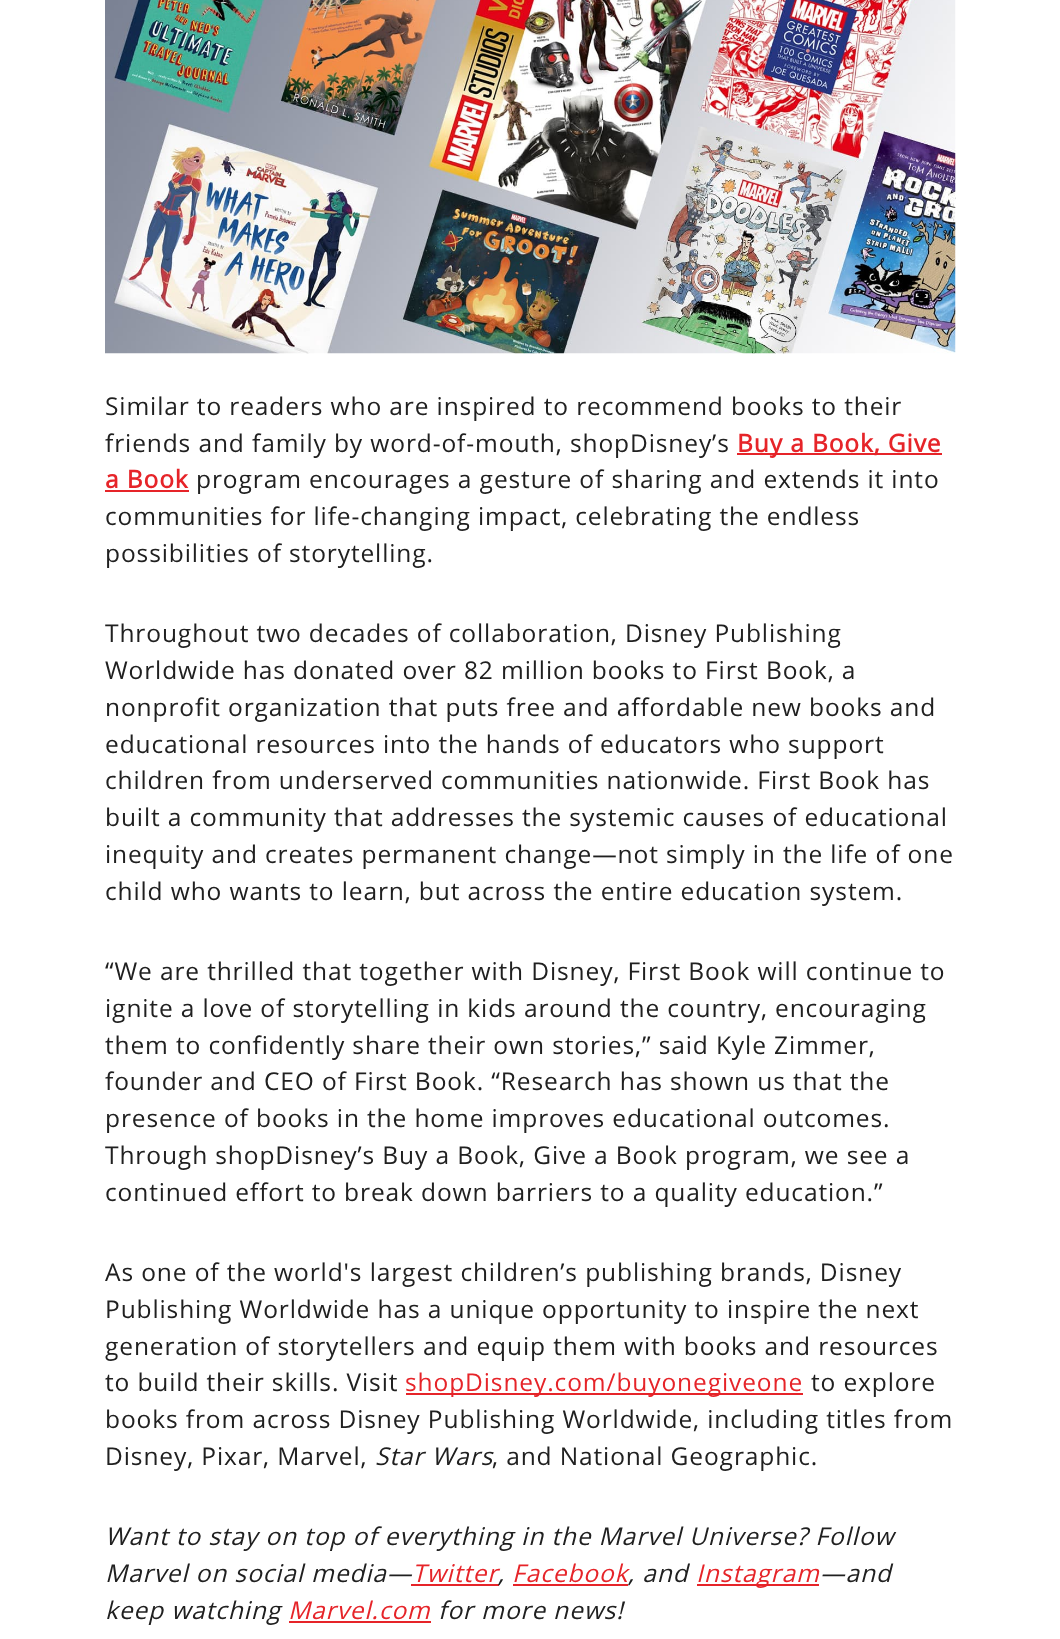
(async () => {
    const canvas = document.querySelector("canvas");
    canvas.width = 1060;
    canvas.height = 1639;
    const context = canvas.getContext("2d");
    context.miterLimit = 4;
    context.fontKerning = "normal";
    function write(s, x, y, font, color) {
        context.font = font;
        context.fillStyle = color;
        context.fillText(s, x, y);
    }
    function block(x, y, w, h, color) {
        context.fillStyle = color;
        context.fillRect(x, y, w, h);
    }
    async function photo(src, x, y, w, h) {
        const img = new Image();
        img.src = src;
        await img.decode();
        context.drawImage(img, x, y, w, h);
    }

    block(0, 0, 1060, 1639, "rgb(255, 255, 255)");
    await photo("media/1.png", 105, 0, 851, 354);
    context.letterSpacing = "0.88px";
    write("Similar to readers who are inspired to recommend books to their", 105, 415, "24.5px Open Sans", "rgb(32, 32, 32)");
    write("friends and family by word-of-mouth, shopDisney’s", 105, 452, "24.5px Open Sans", "rgb(32, 32, 32)");
    block(737, 453, 205, 2, "rgb(230, 36, 41)");
    write("Buy a Book, Give", 737, 452, "bold 24.5px Open Sans", "rgb(230, 36, 41)");
    write("a Book", 105, 488, "bold 24.5px Open Sans", "rgb(230, 36, 41)");
    block(105, 490, 84, 2, "rgb(230, 36, 41)");
    write("program encourages a gesture of sharing and extends it into", 196, 488, "24.5px Open Sans", "rgb(32, 32, 32)");
    write("communities for life-changing impact, celebrating the endless", 105, 525, "24.5px Open Sans", "rgb(32, 32, 32)");
    write("possibilities of storytelling.", 105, 562, "24.5px Open Sans", "rgb(32, 32, 32)");
    write("Throughout two decades of collaboration, Disney Publishing", 105, 642, "24.5px Open Sans", "rgb(32, 32, 32)");
    write("Worldwide has donated over 82 million books to First Book, a", 105, 679, "24.5px Open Sans", "rgb(32, 32, 32)");
    write("nonprofit organization that puts free and affordable new books and", 105, 716, "24.5px Open Sans", "rgb(32, 32, 32)");
    write("educational resources into the hands of educators who support", 105, 753, "24.5px Open Sans", "rgb(32, 32, 32)");
    write("children from underserved communities nationwide. First Book has", 105, 789, "24.5px Open Sans", "rgb(32, 32, 32)");
    write("built a community that addresses the systemic causes of educational", 105, 826, "24.5px Open Sans", "rgb(32, 32, 32)");
    write("inequity and creates permanent change—not simply in the life of one", 105, 863, "24.5px Open Sans", "rgb(32, 32, 32)");
    write("child who wants to learn, but across the entire education system.", 105, 900, "24.5px Open Sans", "rgb(32, 32, 32)");
    write("“We are thrilled that together with Disney, First Book will continue to", 105, 980, "24.5px Open Sans", "rgb(32, 32, 32)");
    write("ignite a love of storytelling in kids around the country, encouraging", 105, 1017, "24.5px Open Sans", "rgb(32, 32, 32)");
    write("them to confidently share their own stories,” said Kyle Zimmer,", 105, 1054, "24.5px Open Sans", "rgb(32, 32, 32)");
    write("founder and CEO of First Book. “Research has shown us that the", 105, 1090, "24.5px Open Sans", "rgb(32, 32, 32)");
    write("presence of books in the home improves educational outcomes.", 105, 1127, "24.5px Open Sans", "rgb(32, 32, 32)");
    write("Through shopDisney’s Buy a Book, Give a Book program, we see a", 105, 1164, "24.5px Open Sans", "rgb(32, 32, 32)");
    write("continued effort to break down barriers to a quality education.”", 105, 1201, "24.5px Open Sans", "rgb(32, 32, 32)");
    write("As one of the world's largest children’s publishing brands, Disney", 105, 1281, "24.5px Open Sans", "rgb(32, 32, 32)");
    write("Publishing Worldwide has a unique opportunity to inspire the next", 105, 1318, "24.5px Open Sans", "rgb(32, 32, 32)");
    write("generation of storytellers and equip them with books and resources", 105, 1355, "24.5px Open Sans", "rgb(32, 32, 32)");
    write("to build their skills. Visit", 105, 1391, "24.5px Open Sans", "rgb(32, 32, 32)");
    block(406, 1393, 397, 2, "rgb(230, 36, 41)");
    write("shopDisney.com/buyonegiveone", 405, 1391, "24.5px Open Sans", "rgb(230, 36, 41)");
    write("to explore", 811, 1391, "24.5px Open Sans", "rgb(32, 32, 32)");
    write("books from across Disney Publishing Worldwide, including titles from", 105, 1428, "24.5px Open Sans", "rgb(32, 32, 32)");
    write("Disney, Pixar, Marvel,", 105, 1465, "24.5px Open Sans", "rgb(32, 32, 32)");
    write("Star Wars", 375, 1465, "italic 24.5px Open Sans", "rgb(32, 32, 32)");
    write(", and National Geographic.", 492, 1465, "24.5px Open Sans", "rgb(32, 32, 32)");
    write("Want to stay on top of everything in the Marvel Universe? Follow", 105, 1545, "italic 24.5px Open Sans", "rgb(32, 32, 32)");
    write("Marvel on social media—", 105, 1582, "italic 24.5px Open Sans", "rgb(32, 32, 32)");
    write("Twitter", 412, 1582, "italic 24.5px Open Sans", "rgb(230, 36, 41)");
    block(411, 1584, 88, 2, "rgb(230, 36, 41)");
    write("Facebook", 512, 1582, "italic 24.5px Open Sans", "rgb(230, 36, 41)");
    block(513, 1584, 115, 2, "rgb(230, 36, 41)");
    write(", and", 628, 1582, "italic 24.5px Open Sans", "rgb(32, 32, 32)");
    block(697, 1584, 122, 2, "rgb(230, 36, 41)");
    write("Instagram", 696, 1582, "italic 24.5px Open Sans", "rgb(230, 36, 41)");
    write("—and", 820, 1582, "italic 24.5px Open Sans", "rgb(32, 32, 32)");
    write(",", 498, 1582, "italic 24.5px Open Sans", "rgb(32, 32, 32)");
    write("keep watching", 105, 1619, "italic 24.5px Open Sans", "rgb(32, 32, 32)");
    write("Marvel.com", 288, 1619, "italic 24.5px Open Sans", "rgb(230, 36, 41)");
    block(289, 1621, 142, 2, "rgb(230, 36, 41)");
    write("for more news!", 438, 1619, "italic 24.5px Open Sans", "rgb(32, 32, 32)");
})();
